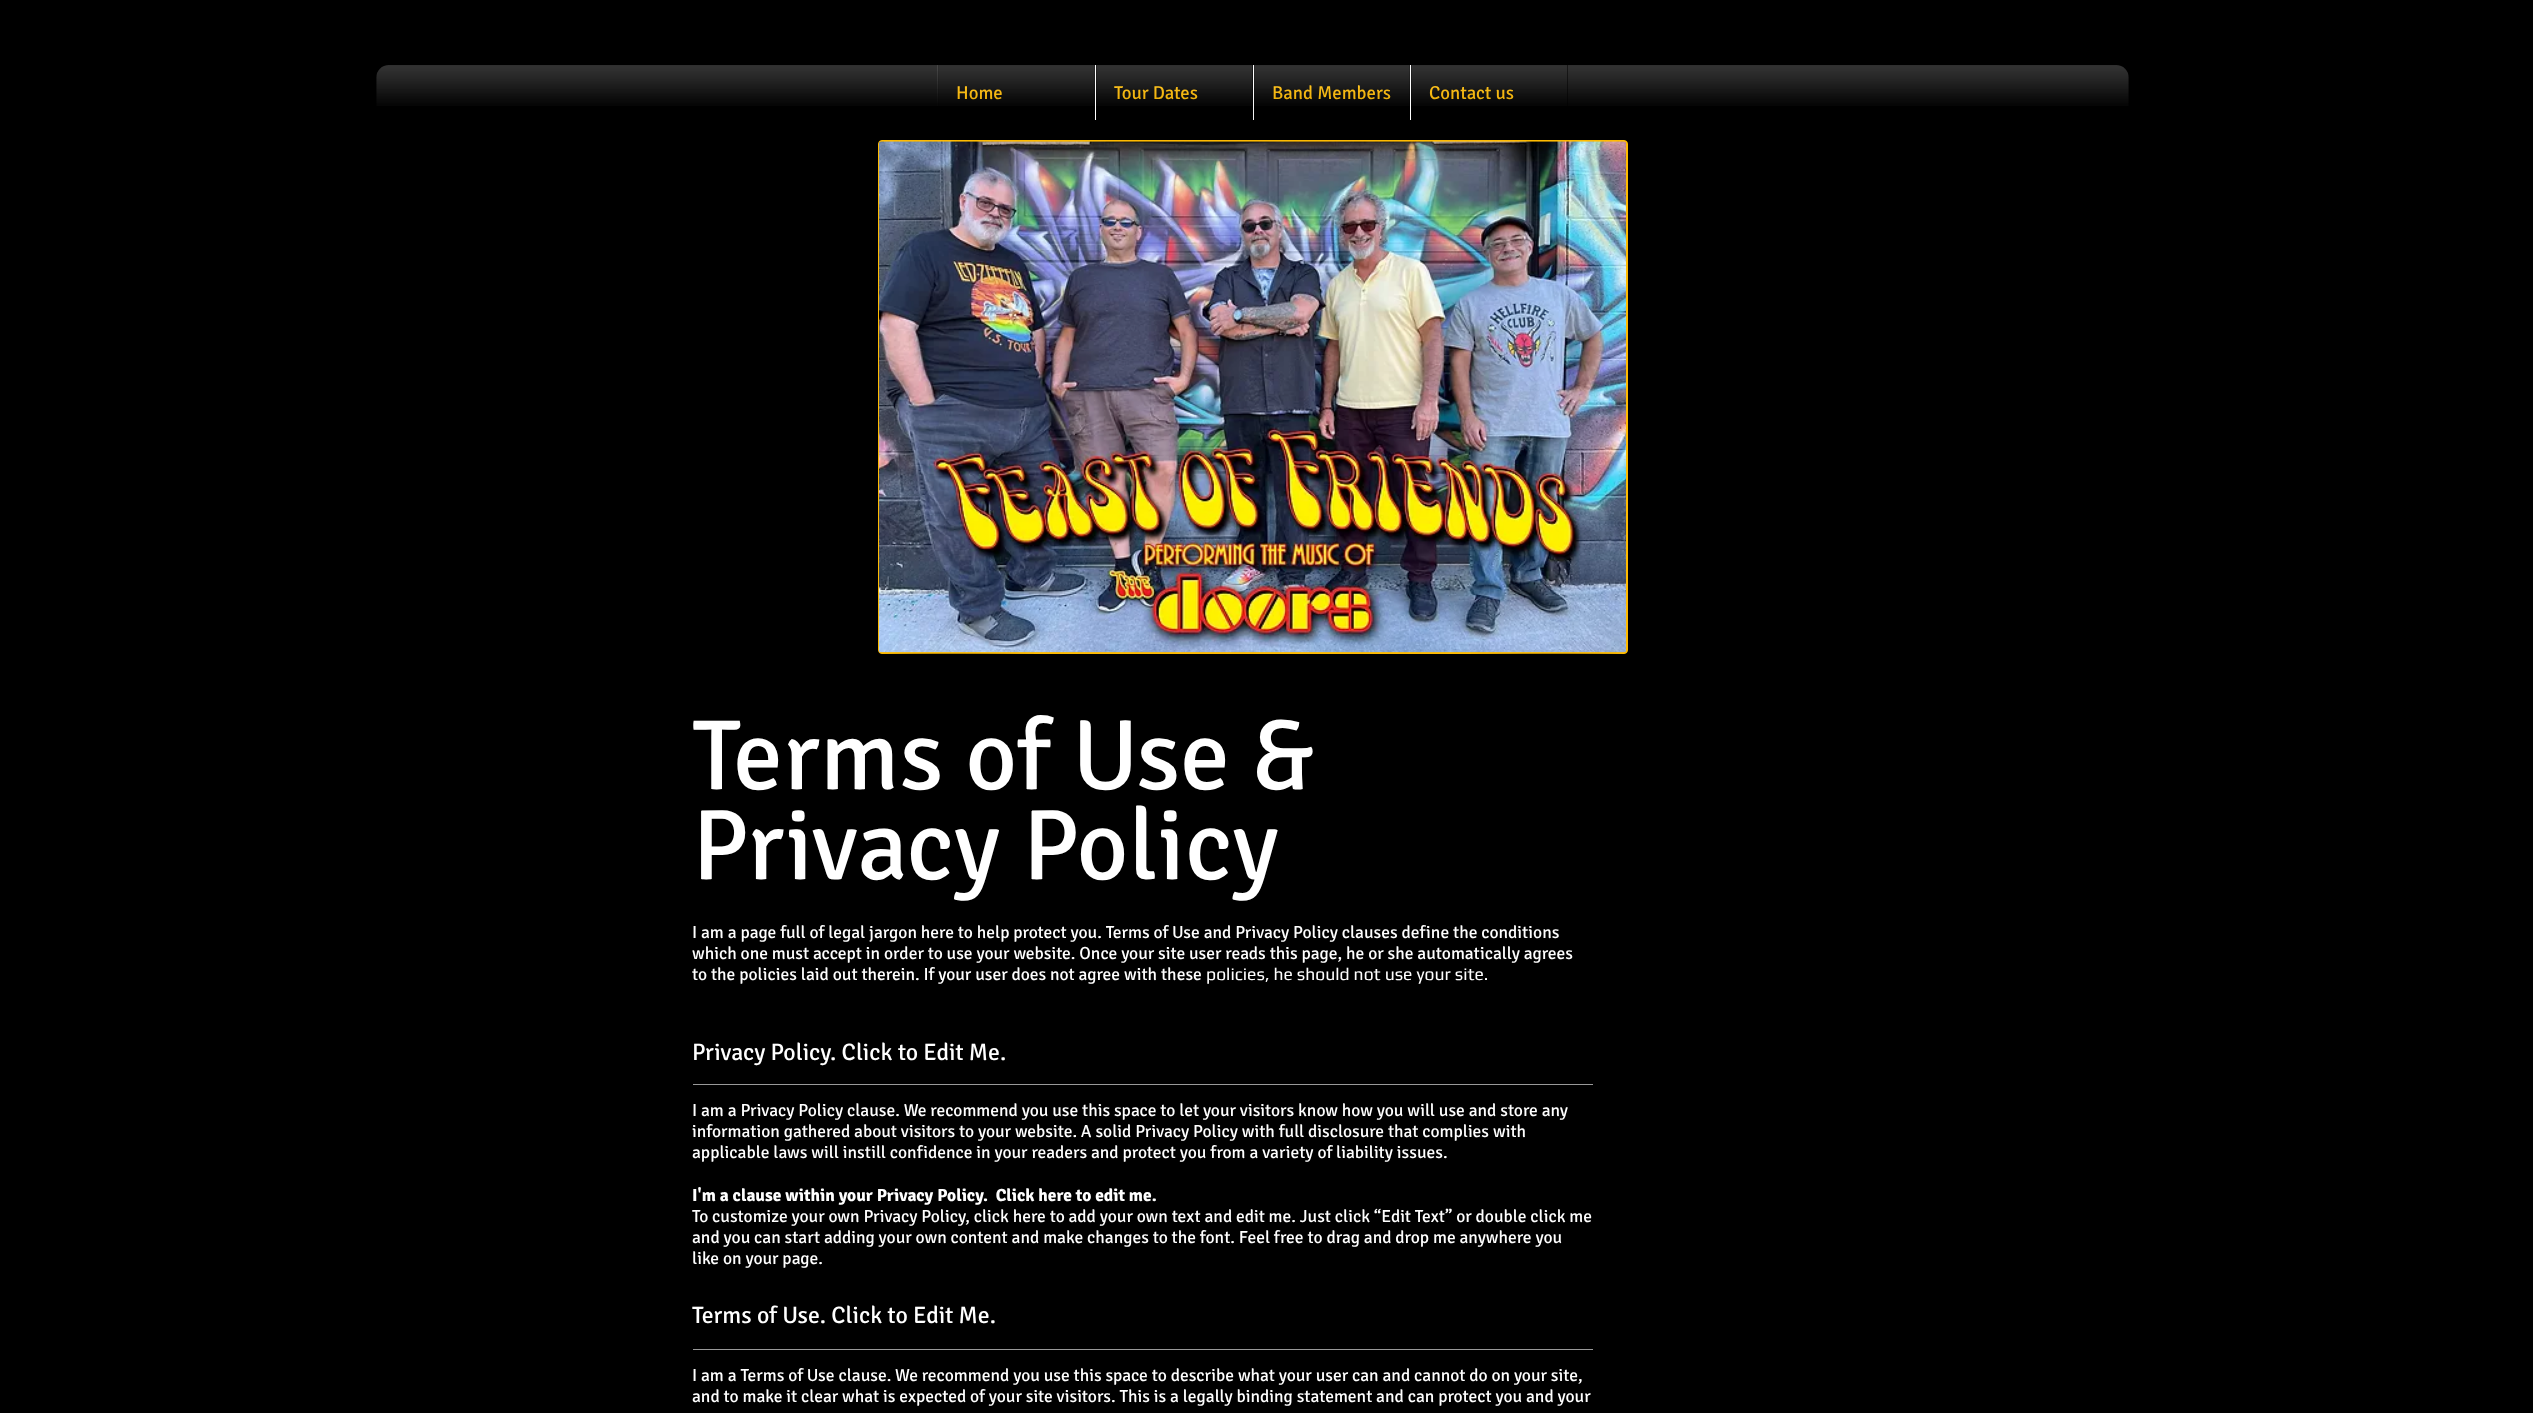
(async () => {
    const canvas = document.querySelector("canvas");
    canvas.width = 2533;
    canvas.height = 1413;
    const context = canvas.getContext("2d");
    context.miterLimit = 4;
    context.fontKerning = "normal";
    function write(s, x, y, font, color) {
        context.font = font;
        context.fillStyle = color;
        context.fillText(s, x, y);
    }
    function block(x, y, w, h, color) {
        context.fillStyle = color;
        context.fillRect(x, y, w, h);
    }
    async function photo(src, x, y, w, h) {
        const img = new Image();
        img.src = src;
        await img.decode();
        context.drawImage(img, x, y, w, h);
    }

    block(0, 0, 2533, 1413, "rgb(0, 0, 0)");
    await photo("media/1.png", 376, 65, 1753, 41);
    block(938, 65, 157, 41, "rgb(0, 0, 0)");
    write("Home", 956, 99, "18.75px Signika", "rgb(255, 187, 0)");
    await photo("media/2.png", 937, 65, 158, 41);
    await photo("media/3.png", 957, 88, 45, 12);
    block(1096, 65, 157, 41, "rgb(0, 0, 0)");
    block(1095, 65, 1, 55, "rgb(255, 255, 255)");
    write("Tour Dates", 1114, 99, "18.75px Signika", "rgb(255, 187, 0)");
    await photo("media/4.png", 1096, 65, 157, 41);
    await photo("media/5.png", 1115, 88, 83, 12);
    block(1254, 65, 156, 41, "rgb(0, 0, 0)");
    block(1253, 65, 1, 55, "rgb(255, 255, 255)");
    write("Band Members", 1272, 99, "18.75px Signika", "rgb(255, 187, 0)");
    await photo("media/6.png", 1254, 65, 156, 41);
    await photo("media/7.png", 1253, 88, 137, 32);
    block(1411, 65, 157, 41, "rgb(0, 0, 0)");
    block(1410, 65, 1, 55, "rgb(255, 255, 255)");
    write("Contact us", 1429, 99, "18.75px Signika", "rgb(255, 187, 0)");
    await photo("media/8.png", 1411, 65, 157, 41);
    await photo("media/9.png", 1430, 88, 84, 12);
    context.beginPath();
    context.roundRect(878.5, 140.5, 749, 513, 3.5);
    context.fill();
    context.strokeStyle = "rgb(255, 187, 0)";
    context.stroke();
    await photo("media/10.png", 879, 141, 747, 512);
    await photo("media/11.png", 883, 653, 151, 1);
    await photo("media/12.png", 1471, 653, 151, 1);
    write("Terms of Use &", 692, 789, "100px Signika", "rgb(255, 255, 255)");
    write("Privacy Policy", 692, 879, "100px Signika", "rgb(255, 255, 255)");
    write("I am a page full of legal jargon here to help protect you. Terms of Use and Privacy Policy clauses define the conditions", 692, 938, "17.5px Signika", "rgb(255, 255, 255)");
    write("which one must accept in order to use your website. Once your site user reads this page, he or she automatically agrees", 692, 959, "17.5px Signika", "rgb(255, 255, 255)");
    write("to the policies laid out therein. If your user does not agree with these", 692, 980, "17.5px Signika", "rgb(255, 255, 255)");
    write("policies, he should not use your site.", 1206, 980, "17.5px Play", "rgb(255, 255, 255)");
    write("Privacy Policy. Click to Edit Me.", 692, 1060, "23.75px Signika", "rgb(255, 255, 255)");
    block(693, 1084, 900, 1, "rgb(153, 153, 153)");
    write("I am a Privacy Policy clause. We recommend you use this space to let your visitors know how you will use and store any", 692, 1116, "17.5px Signika", "rgb(255, 255, 255)");
    write("information gathered about visitors to your website. A solid Privacy Policy with full disclosure that complies with", 692, 1137, "17.5px Signika", "rgb(255, 255, 255)");
    write("applicable laws will instill confidence in your readers and protect you from a variety of liability issues.", 692, 1158, "17.5px Signika", "rgb(255, 255, 255)");
    write("I'm a clause within your Privacy Policy.  Click here to edit me.", 692, 1201, "bold 17.5px Signika", "rgb(255, 255, 255)");
    write("To customize your own Privacy Policy, click here to add your own text and edit me. Just click “Edit Text” or double click me", 692, 1222, "17.5px Signika", "rgb(255, 255, 255)");
    write("and you can start adding your own content and make changes to the font. Feel free to drag and drop me anywhere you", 692, 1243, "17.5px Signika", "rgb(255, 255, 255)");
    write("like on your page.", 692, 1264, "17.5px Signika", "rgb(255, 255, 255)");
    write("Terms of Use. Click to Edit Me.", 692, 1323, "23.75px Signika", "rgb(255, 255, 255)");
    block(693, 1349, 900, 1, "rgb(153, 153, 153)");
    write("I am a Terms of Use clause. We recommend you use this space to describe what your user can and cannot do on your site,", 692, 1381, "17.5px Signika", "rgb(255, 255, 255)");
    write("and to make it clear what is expected of your site visitors. This is a legally binding statement and can protect you and your", 692, 1402, "17.5px Signika", "rgb(255, 255, 255)");
})();
